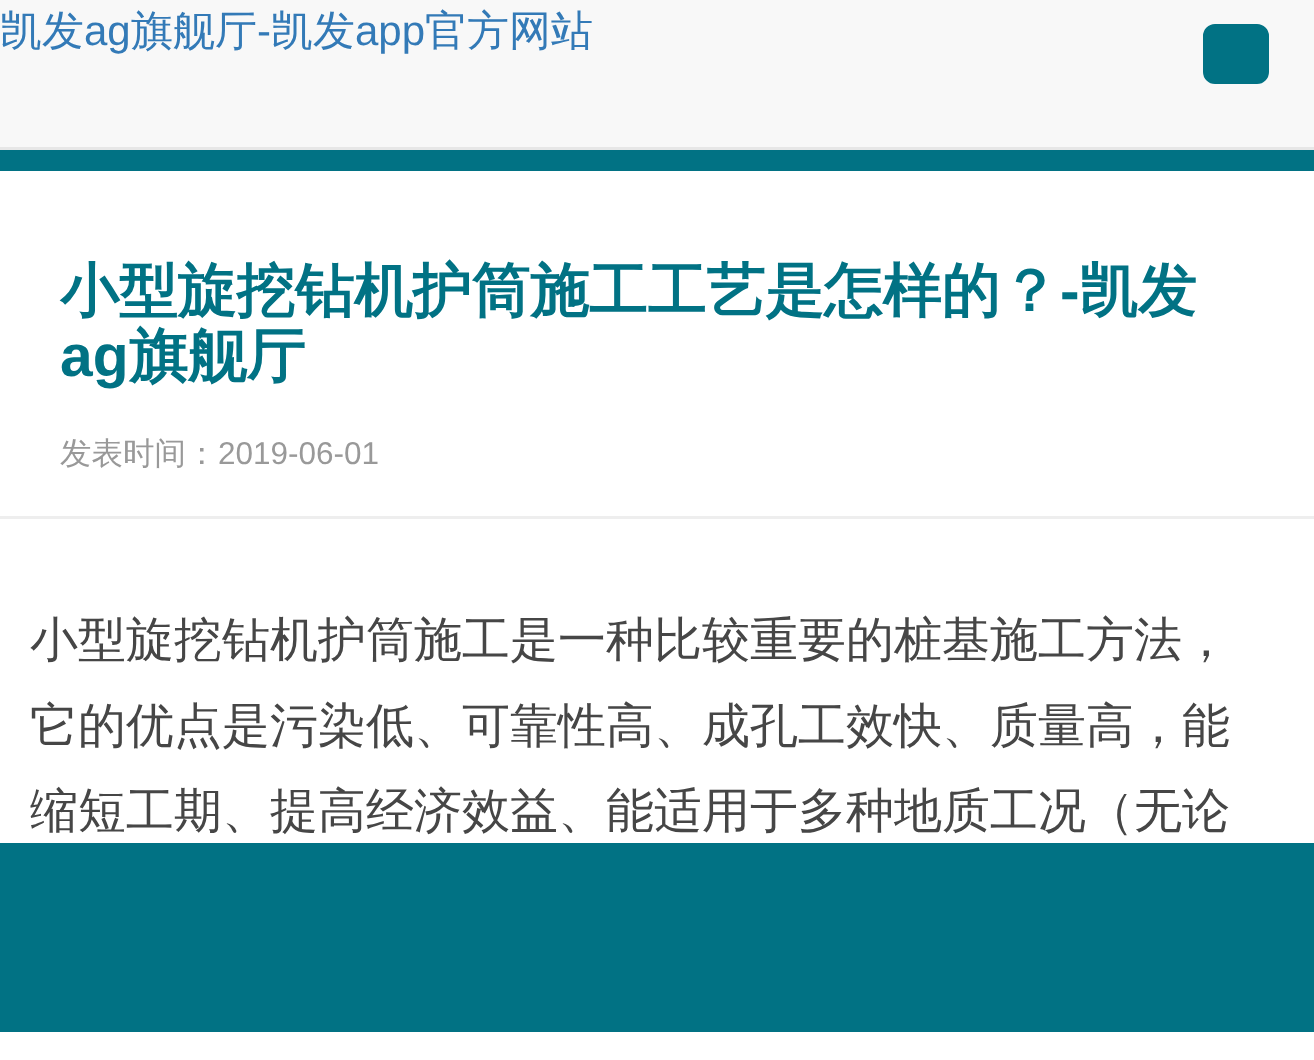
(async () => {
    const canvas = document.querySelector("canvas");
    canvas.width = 1314;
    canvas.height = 1060;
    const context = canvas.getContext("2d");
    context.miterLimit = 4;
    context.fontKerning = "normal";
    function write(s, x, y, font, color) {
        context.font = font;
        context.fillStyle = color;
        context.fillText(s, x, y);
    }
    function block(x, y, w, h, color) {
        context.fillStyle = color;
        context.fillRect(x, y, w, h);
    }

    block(0, 0, 1314, 1060, "rgb(255, 255, 255)");
    block(0, 0, 1314, 147, "rgb(248, 248, 248)");
    block(0, 147, 1314, 3, "rgb(231, 231, 231)");
    write("凯发", 0, 45, "500 42px WenQuanYi Zen Hei", "rgb(51, 122, 183)");
    write("ag", 84, 45, "42px Liberation Sans", "rgb(51, 122, 183)");
    write("旗舰厅", 131, 45, "500 42px WenQuanYi Zen Hei", "rgb(51, 122, 183)");
    write("-", 257, 45, "42px Liberation Sans", "rgb(51, 122, 183)");
    write("凯发", 271, 45, "500 42px WenQuanYi Zen Hei", "rgb(51, 122, 183)");
    write("app", 355, 45, "42px Liberation Sans", "rgb(51, 122, 183)");
    write("官方网站", 425, 45, "500 42px WenQuanYi Zen Hei", "rgb(51, 122, 183)");
    context.fillStyle = "rgb(1, 114, 132)";
    context.beginPath();
    context.roundRect(1204.5, 25.5, 63, 57, 10.5);
    context.fill();
    context.strokeStyle = "rgb(1, 114, 132)";
    context.lineWidth = 3;
    context.stroke();
    block(0, 150, 1314, 21, "rgb(1, 114, 132)");
    write("小型旋挖钻机护筒施工工艺是怎样的？", 60, 311, "bold 58.75px WenQuanYi Zen Hei", "rgb(1, 114, 132)");
    write("-", 1060, 311, "bold 58.75px Liberation Sans", "rgb(1, 114, 132)");
    write("凯发", 1079, 311, "bold 58.75px WenQuanYi Zen Hei", "rgb(1, 114, 132)");
    write("ag", 60, 376, "bold 58.75px Liberation Sans", "rgb(1, 114, 132)");
    write("旗舰厅", 129, 376, "bold 58.75px WenQuanYi Zen Hei", "rgb(1, 114, 132)");
    write("发表时间：", 60, 464, "500 31.5px WenQuanYi Zen Hei", "rgb(153, 153, 153)");
    write("2019-06-01", 218, 464, "31.5px Liberation Sans", "rgb(153, 153, 153)");
    block(0, 516, 1314, 3, "rgb(238, 238, 238)");
    write("小型旋挖钻机护筒施工是一种比较重要的桩基施工方法，", 30, 656, "500 48px WenQuanYi Zen Hei", "rgb(70, 70, 70)");
    write("它的优点是污染低、可靠性高、成孔工效快、质量高，能", 30, 742, "500 48px WenQuanYi Zen Hei", "rgb(70, 70, 70)");
    write("缩短工期、提高经济效益、能适用于多种地质工况（无论", 30, 827, "500 48px WenQuanYi Zen Hei", "rgb(70, 70, 70)");
    block(0, 843, 1314, 189, "rgb(1, 114, 132)");
})();
